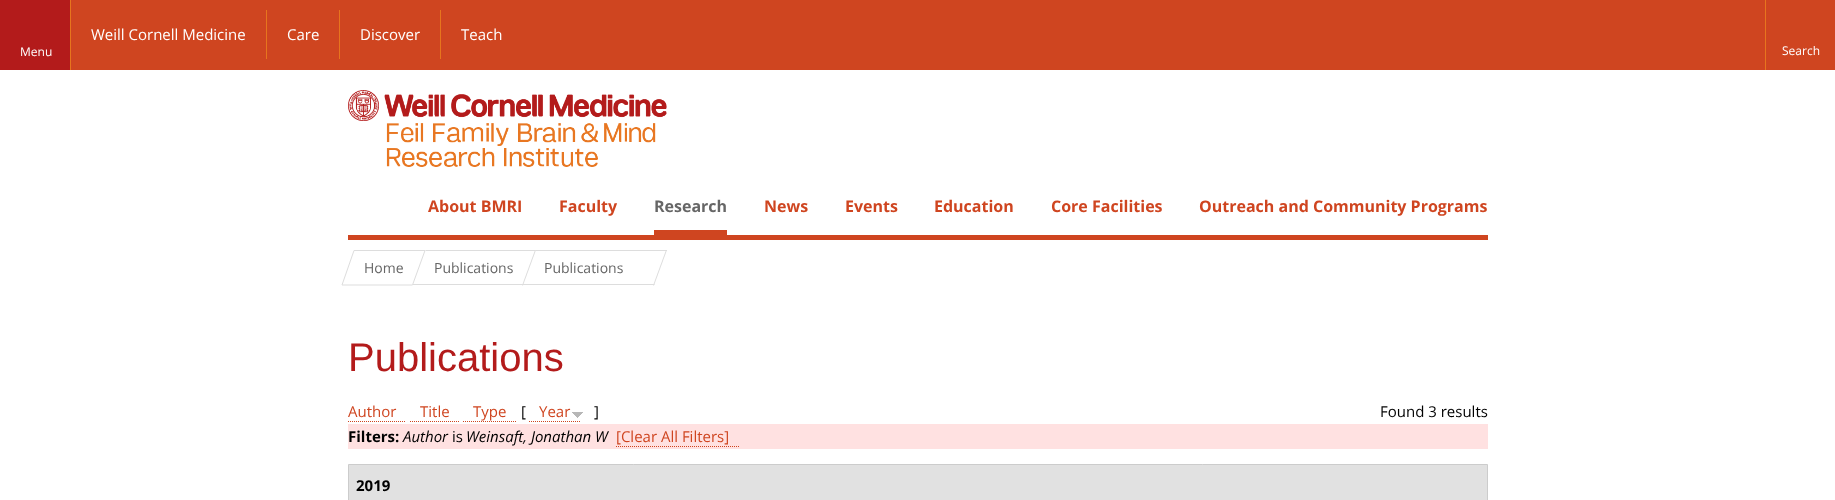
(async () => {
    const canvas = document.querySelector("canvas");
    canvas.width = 1835;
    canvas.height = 500;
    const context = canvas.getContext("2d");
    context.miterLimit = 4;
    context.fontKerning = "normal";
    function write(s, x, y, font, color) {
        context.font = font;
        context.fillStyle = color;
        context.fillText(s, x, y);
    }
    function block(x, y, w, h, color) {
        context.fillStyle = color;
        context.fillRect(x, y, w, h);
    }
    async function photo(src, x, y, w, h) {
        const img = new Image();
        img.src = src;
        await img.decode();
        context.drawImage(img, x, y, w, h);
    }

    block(0, 0, 1835, 500, "rgb(255, 255, 255)");
    block(71, 0, 1764, 70, "rgb(207, 69, 32)");
    block(266, 10, 1, 49, "rgb(231, 117, 29)");
    write("Weill Cornell Medicine", 91, 40, "15px Open Sans", "rgb(255, 255, 255)");
    block(339, 10, 1, 49, "rgb(231, 117, 29)");
    write("Care", 287, 40, "15px Open Sans", "rgb(255, 255, 255)");
    block(440, 10, 1, 49, "rgb(231, 117, 29)");
    write("Discover", 360, 40, "15px Open Sans", "rgb(255, 255, 255)");
    write("Teach", 461, 40, "15px Open Sans", "rgb(255, 255, 255)");
    block(0, 0, 70, 70, "rgb(179, 27, 27)");
    block(70, 0, 1, 70, "rgb(231, 117, 29)");
    write("Menu", 20, 56, "12px Open Sans", "rgb(255, 255, 255)");
    block(1765, 0, 1, 70, "rgb(231, 117, 29)");
    write("Search", 1782, 55, "12px Open Sans", "rgb(255, 255, 255)");
    await photo("media/1.png", 348, 90, 319, 77);
    block(348, 235, 1140, 5, "rgb(207, 69, 32)");
    write("About BMRI", 428, 212, "bold 16px Open Sans", "rgb(207, 69, 32)");
    write("Faculty", 559, 212, "bold 16px Open Sans", "rgb(207, 69, 32)");
    block(654, 230, 73, 5, "rgb(207, 69, 32)");
    write("Research", 654, 212, "bold 16px Open Sans", "rgb(102, 102, 102)");
    write("News", 764, 212, "bold 16px Open Sans", "rgb(207, 69, 32)");
    write("Events", 845, 212, "bold 16px Open Sans", "rgb(207, 69, 32)");
    write("Education", 934, 212, "bold 16px Open Sans", "rgb(207, 69, 32)");
    write("Core Facilities", 1051, 212, "bold 16px Open Sans", "rgb(207, 69, 32)");
    write("Outreach and Community Programs", 1199, 212, "bold 16px Open Sans", "rgb(207, 69, 32)");
    context.beginPath();
    context.moveTo(354, 250.5);
    context.lineTo(425, 250.5);
    context.lineTo(412.5, 285);
    context.lineTo(342, 285);
    context.closePath();
    context.strokeStyle = "rgb(221, 221, 221)";
    context.stroke();
    write("Home", 364, 273, "14px Open Sans", "rgb(102, 102, 102)");
    context.fillStyle = "rgb(221, 221, 221)";
    context.beginPath();
    context.moveTo(426, 250);
    context.lineTo(536, 250);
    context.lineTo(535, 251);
    context.lineTo(425, 251);
    context.closePath();
    context.fill();
    context.beginPath();
    context.moveTo(535, 250);
    context.lineTo(536, 250);
    context.lineTo(523, 285.5);
    context.lineTo(522, 285.5);
    context.closePath();
    context.fill();
    block(413, 284, 110, 1, "rgb(221, 221, 221)");
    write("Publications", 434, 273, "14px Open Sans", "rgb(102, 102, 102)");
    context.fillStyle = "rgb(221, 221, 221)";
    context.beginPath();
    context.moveTo(536, 250);
    context.lineTo(667, 250);
    context.lineTo(667, 251);
    context.lineTo(535, 251);
    context.closePath();
    context.fill();
    context.beginPath();
    context.moveTo(666, 250);
    context.lineTo(667, 250);
    context.lineTo(654, 285.5);
    context.lineTo(653, 285.5);
    context.closePath();
    context.fill();
    context.beginPath();
    context.moveTo(523, 284);
    context.lineTo(655, 284);
    context.lineTo(654, 285);
    context.lineTo(523, 285);
    context.closePath();
    context.fill();
    write("Publications", 544, 273, "14px Open Sans", "rgb(102, 102, 102)");
    write("Publications", 348, 371, "40px Liberation Sans", "rgb(179, 27, 27)");
    write("Author", 348, 417, "15px Open Sans", "rgb(207, 69, 32)");
    context.beginPath();
    context.moveTo(348, 421.5);
    context.lineTo(406, 421.5);
    context.strokeStyle = "rgb(207, 69, 32)";
    context.setLineDash([1, 1]);
    context.stroke();
    write("Title", 420, 417, "15px Open Sans", "rgb(207, 69, 32)");
    context.beginPath();
    context.moveTo(410, 421.5);
    context.lineTo(459, 421.5);
    context.stroke();
    write("Type", 473, 417, "15px Open Sans", "rgb(207, 69, 32)");
    context.beginPath();
    context.moveTo(463, 421.5);
    context.lineTo(517, 421.5);
    context.stroke();
    write("[", 521, 417, "15px Open Sans", "rgb(0, 0, 0)");
    write("Year", 539, 417, "15px Open Sans", "rgb(207, 69, 32)");
    context.beginPath();
    context.moveTo(529, 421.5);
    context.lineTo(581, 421.5);
    context.stroke();
    await photo("media/2.png", 572, 412, 11, 6);
    write("]", 594, 417, "15px Open Sans", "rgb(0, 0, 0)");
    write("Found 3 results", 1380, 417, "15px Open Sans", "rgb(0, 0, 0)");
    block(348, 424, 1140, 25, "rgb(255, 225, 225)");
    write("Filters:", 348, 442, "bold 15px Open Sans", "rgb(0, 0, 0)");
    write("Author", 403, 442, "italic 15px Open Sans", "rgb(0, 0, 0)");
    write("is", 452, 442, "15px Open Sans", "rgb(0, 0, 0)");
    write("Weinsaft, Jonathan W", 466, 442, "italic 15px Open Sans", "rgb(0, 0, 0)");
    write("[Clear All Filters]", 616, 442, "15px Open Sans", "rgb(207, 69, 32)");
    context.beginPath();
    context.moveTo(616, 446.5);
    context.lineTo(739, 446.5);
    context.stroke();
    context.fillStyle = "rgb(225, 225, 225)";
    context.beginPath();
    context.rect(348.5, 464.5, 1139, 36);
    context.fill();
    context.strokeStyle = "rgb(204, 204, 204)";
    context.setLineDash([]);
    context.stroke();
    write("2019", 356, 491, "bold 15px Open Sans", "rgb(0, 0, 0)");
})();
